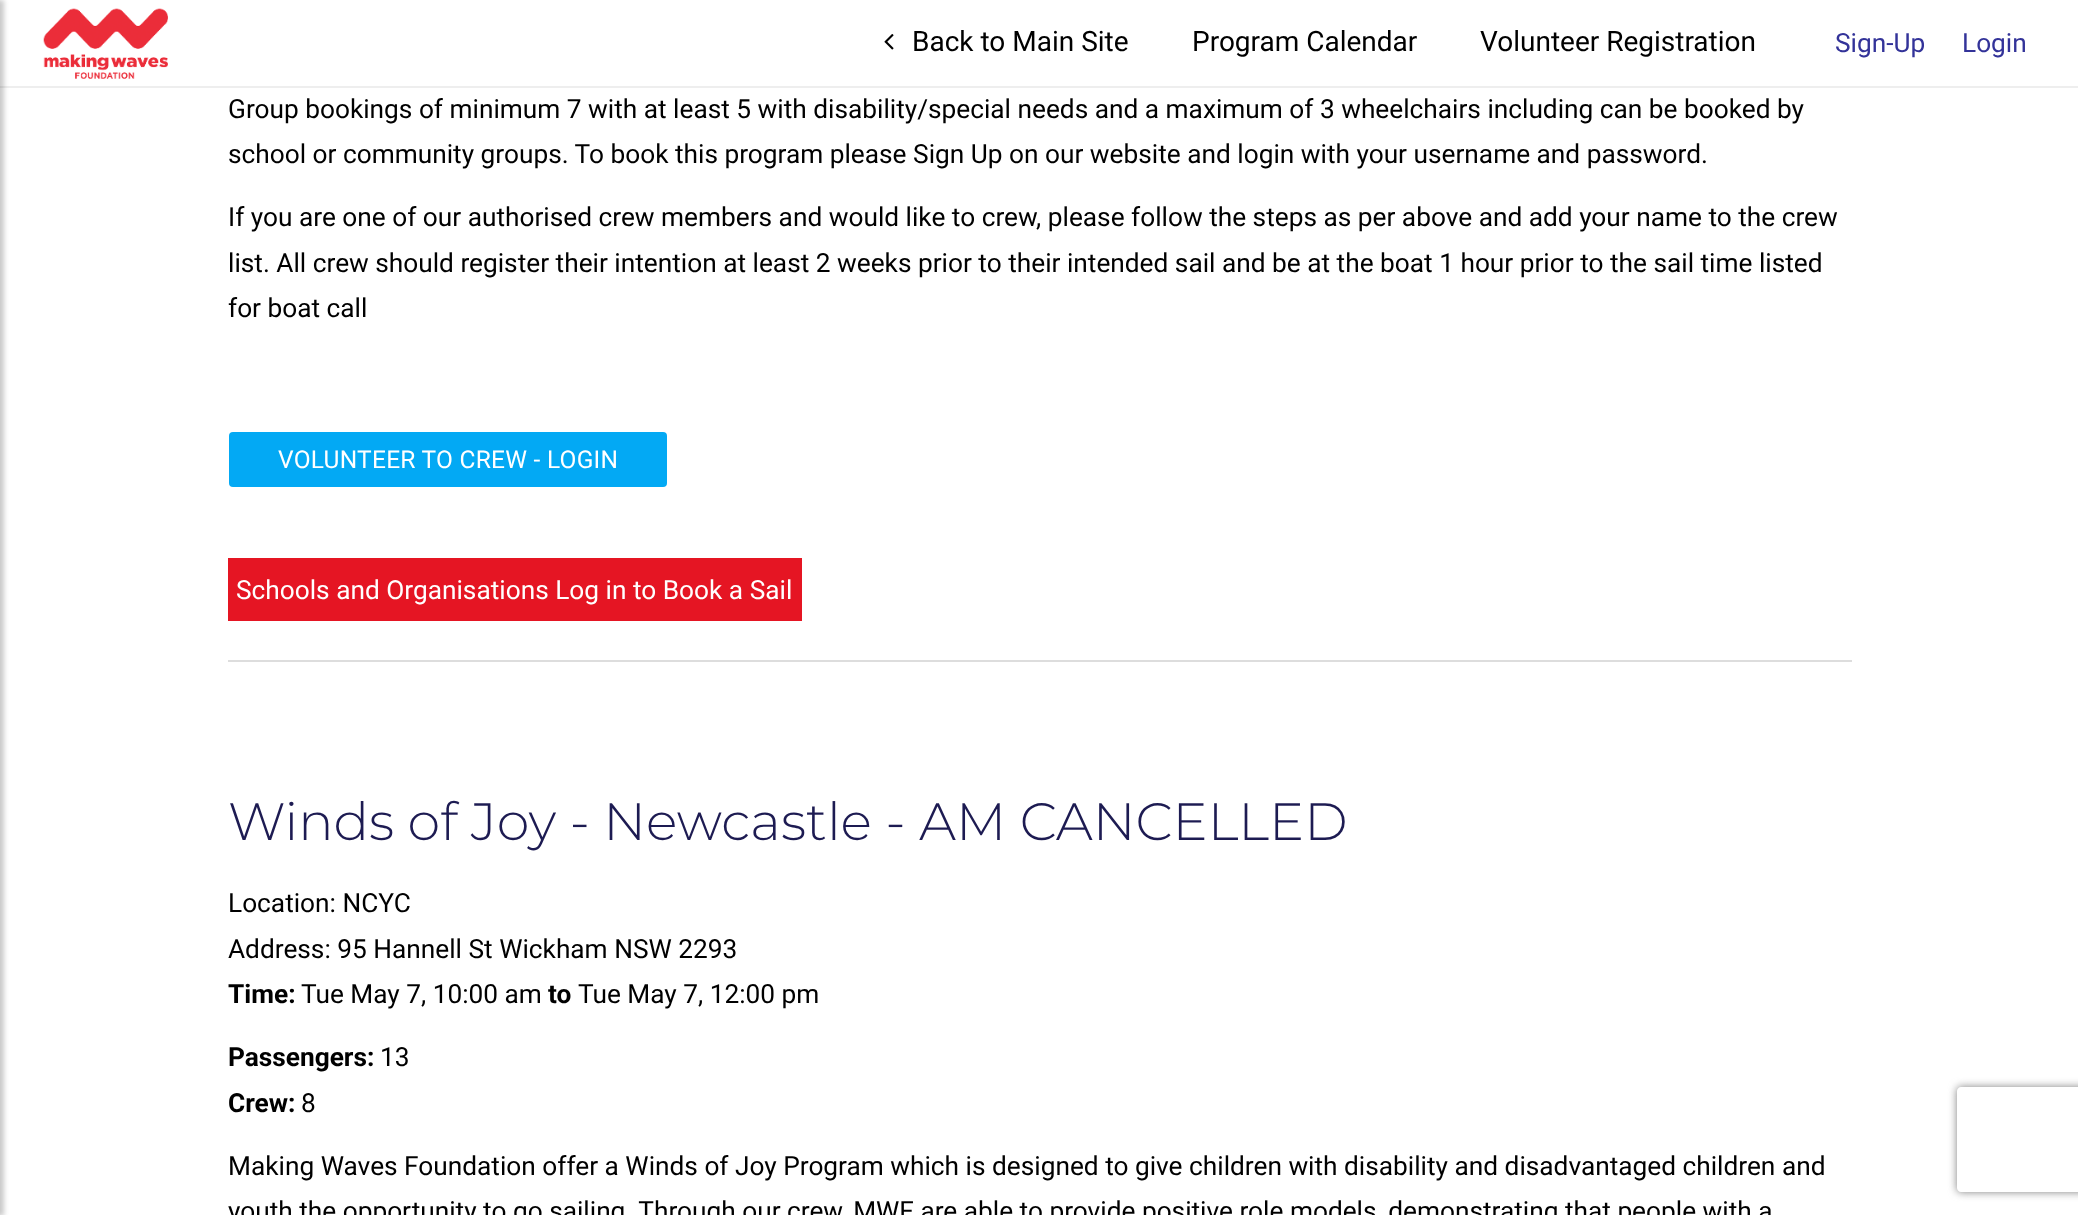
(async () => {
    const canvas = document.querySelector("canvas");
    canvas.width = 2078;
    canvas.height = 1215;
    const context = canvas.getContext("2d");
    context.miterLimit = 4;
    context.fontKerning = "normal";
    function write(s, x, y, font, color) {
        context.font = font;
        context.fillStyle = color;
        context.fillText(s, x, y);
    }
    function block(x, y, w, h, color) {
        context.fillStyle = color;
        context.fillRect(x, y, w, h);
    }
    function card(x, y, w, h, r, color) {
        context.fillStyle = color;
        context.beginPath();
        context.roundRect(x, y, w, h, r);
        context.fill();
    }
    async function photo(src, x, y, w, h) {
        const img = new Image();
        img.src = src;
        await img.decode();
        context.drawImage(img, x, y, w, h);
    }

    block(0, 0, 2078, 1215, "rgb(255, 255, 255)");
    block(0, 86, 2078, 2, "rgb(238, 238, 238)");
    context.fillStyle = "rgba(0, 0, 0, 0.21)";
    context.filter = "blur(2.5px)";
    context.beginPath();
    context.rect(-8, 0, 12, 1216);
    context.fill();
    context.filter = "none";
    await photo("media/1.png", 43, 8, 125, 71);
    await photo("media/2.png", 884, 34, 10, 16);
    write("Back to Main Site", 912, 51, "28px Roboto", "rgb(0, 0, 0)");
    write("Program Calendar", 1192, 51, "28px Roboto", "rgb(0, 0, 0)");
    write("Volunteer Registration", 1480, 51, "28px Roboto", "rgb(0, 0, 0)");
    write("Sign-Up", 1835, 52, "26.25px Roboto", "rgb(51, 51, 153)");
    write("Login", 1962, 52, "26.25px Roboto", "rgb(51, 51, 153)");
    write("Group bookings of minimum 7 with at least 5 with disability/special needs and a maximum of 3 wheelchairs including can be booked by", 228, 118, "26.25px Roboto", "rgb(0, 0, 0)");
    write("school or community groups. To book this program please Sign Up on our website and login with your username and password.", 228, 163, "26.25px Roboto", "rgb(0, 0, 0)");
    write("If you are one of our authorised crew members and would like to crew, please follow the steps as per above and add your name to the crew", 228, 226, "26.25px Roboto", "rgb(0, 0, 0)");
    write("list. All crew should register their intention at least 2 weeks prior to their intended sail and be at the boat 1 hour prior to the sail time listed", 228, 272, "26.25px Roboto", "rgb(0, 0, 0)");
    write("for boat call", 228, 317, "26.25px Roboto", "rgb(0, 0, 0)");
    card(229, 432, 438, 55, 4, "rgb(3, 169, 244)");
    context.letterSpacing = "0.25px";
    write("VOLUNTEER TO CREW - LOGIN", 278, 468, "24.5px Roboto", "rgb(255, 255, 255)");
    block(228, 558, 574, 63, "rgb(229, 21, 35)");
    context.letterSpacing = "0px";
    write("Schools and Organisations Log in to Book a Sail", 236, 599, "26.25px Roboto", "rgb(255, 255, 255)");
    block(228, 660, 1624, 2, "rgb(221, 221, 221)");
    write("Winds of Joy - Newcastle - AM CANCELLED", 228, 840, "300 52.5px Montserrat", "rgb(29, 27, 82)");
    write("Location: NCYC", 228, 912, "26.25px Roboto", "rgb(0, 0, 0)");
    write("Address: 95 Hannell St Wickham NSW 2293", 228, 958, "26.25px Roboto", "rgb(0, 0, 0)");
    write("Time:", 228, 1003, "bold 26.25px Roboto", "rgb(0, 0, 0)");
    write("Tue May 7, 10:00 am", 301, 1003, "26.25px Roboto", "rgb(0, 0, 0)");
    write("to", 548, 1003, "bold 26.25px Roboto", "rgb(0, 0, 0)");
    write("Tue May 7, 12:00 pm", 578, 1003, "26.25px Roboto", "rgb(0, 0, 0)");
    write("Passengers:", 228, 1066, "bold 26.25px Roboto", "rgb(0, 0, 0)");
    write("13", 380, 1066, "26.25px Roboto", "rgb(0, 0, 0)");
    write("Crew:", 228, 1112, "bold 26.25px Roboto", "rgb(0, 0, 0)");
    write("8", 301, 1112, "26.25px Roboto", "rgb(0, 0, 0)");
    write("Making Waves Foundation offer a Winds of Joy Program which is designed to give children with disability and disadvantaged children and", 228, 1175, "26.25px Roboto", "rgb(0, 0, 0)");
    write("youth the opportunity to go sailing. Through our crew, MWF are able to provide positive role models, demonstrating that people with a", 228, 1220, "26.25px Roboto", "rgb(0, 0, 0)");
    context.save();
    context.beginPath();
    context.moveTo(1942, 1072);
    context.lineTo(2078, 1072);
    context.lineTo(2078, 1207);
    context.lineTo(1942, 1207);
    context.closePath();
    context.moveTo(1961, 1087);
    context.lineTo(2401, 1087);
    context.bezierCurveTo(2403, 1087, 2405, 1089, 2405, 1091);
    context.lineTo(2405, 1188);
    context.bezierCurveTo(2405, 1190, 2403, 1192, 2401, 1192);
    context.lineTo(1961, 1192);
    context.bezierCurveTo(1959, 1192, 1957, 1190, 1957, 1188);
    context.lineTo(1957, 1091);
    context.bezierCurveTo(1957, 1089, 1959, 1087, 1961, 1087);
    context.closePath();
    context.clip("evenodd");
    context.fillStyle = "rgb(128, 128, 128)";
    context.filter = "blur(4.5px)";
    context.beginPath();
    context.roundRect(1957, 1087, 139, 105, 4);
    context.fill();
    context.filter = "none";
    context.restore();
})();
